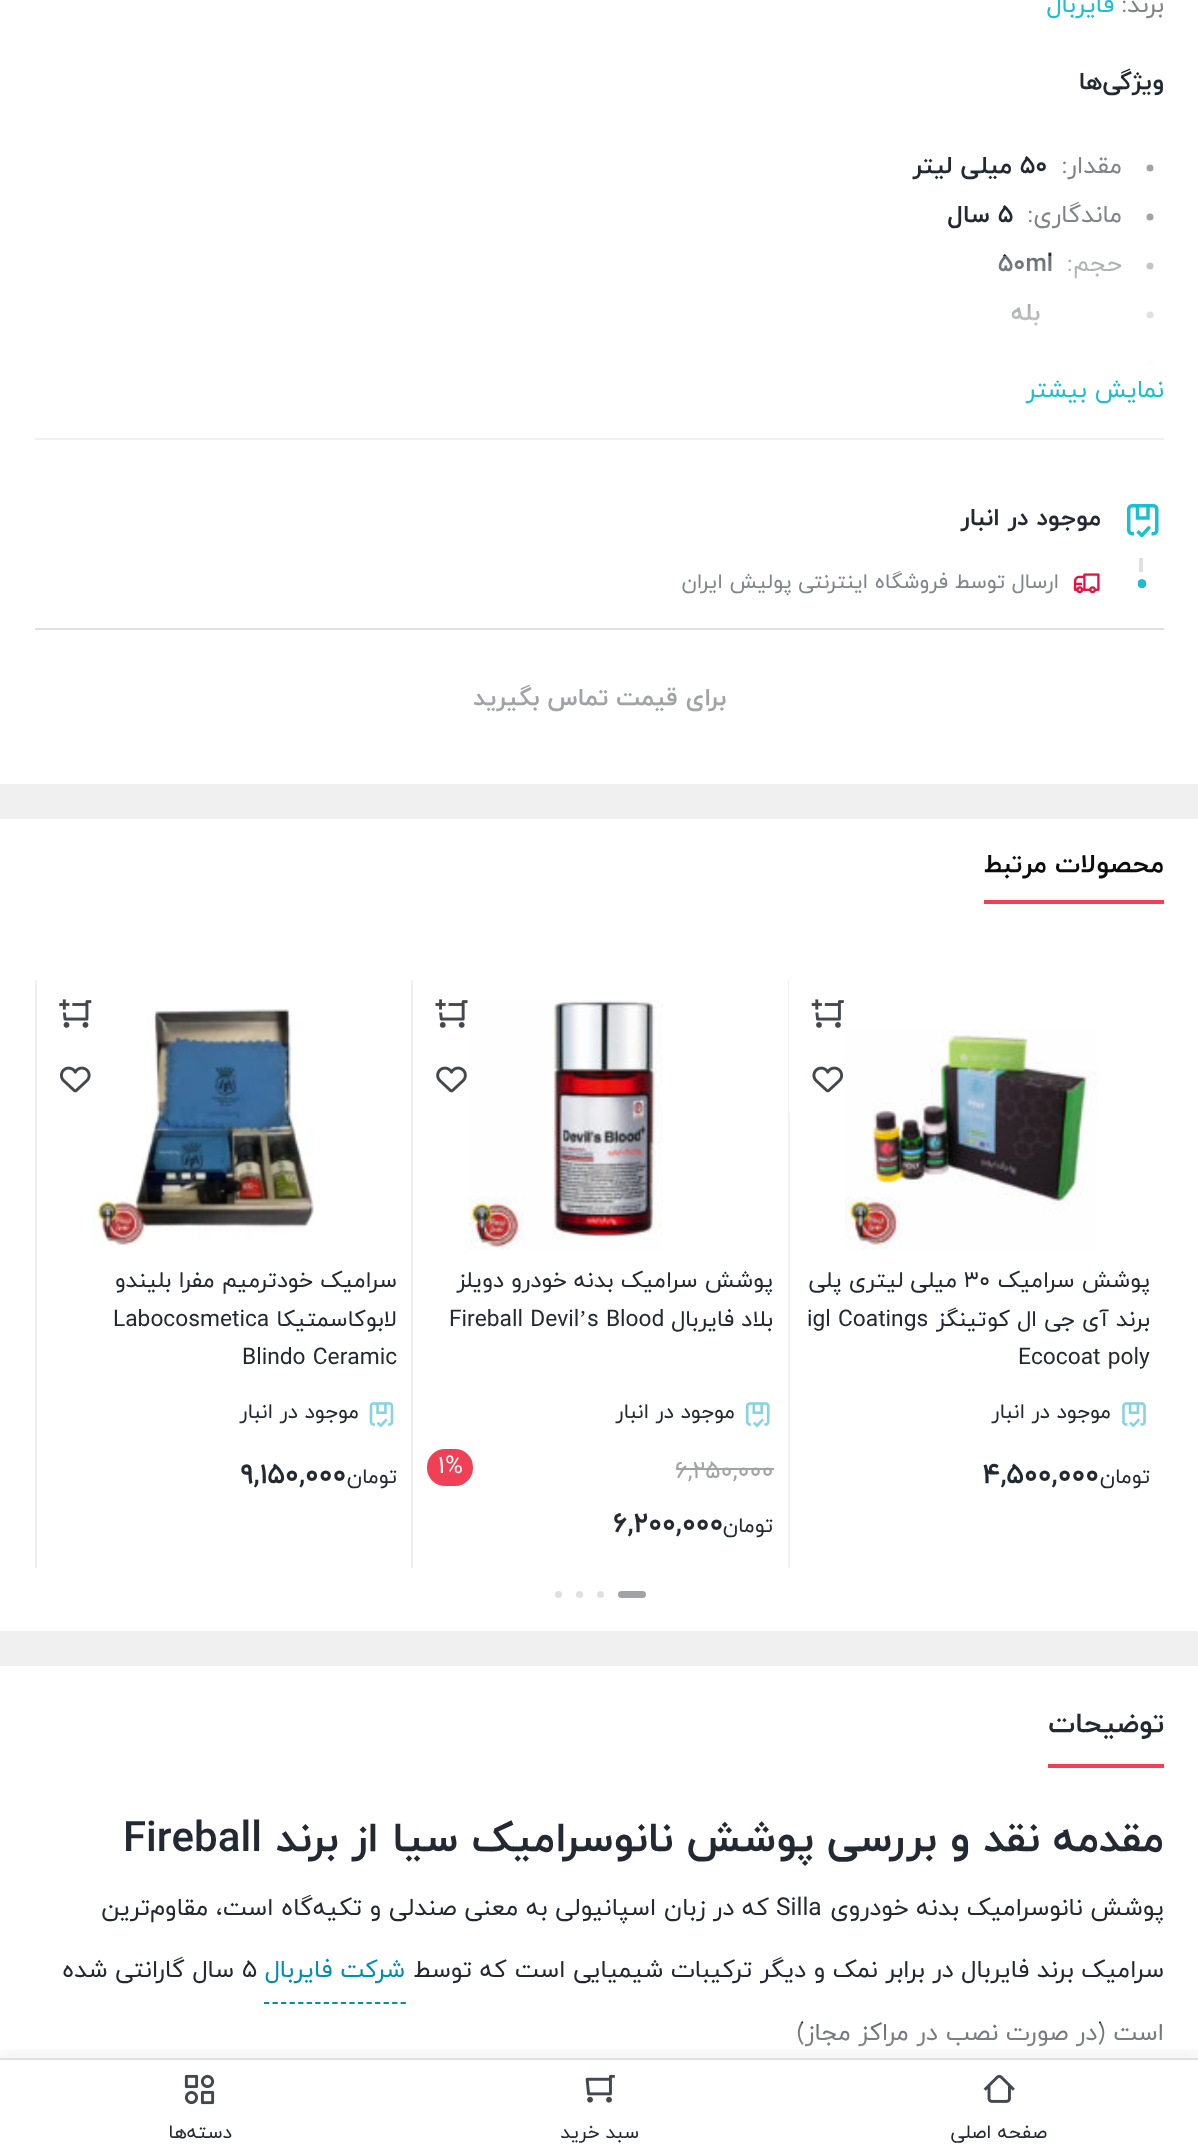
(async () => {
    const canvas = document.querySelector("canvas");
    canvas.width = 1198;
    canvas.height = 2152;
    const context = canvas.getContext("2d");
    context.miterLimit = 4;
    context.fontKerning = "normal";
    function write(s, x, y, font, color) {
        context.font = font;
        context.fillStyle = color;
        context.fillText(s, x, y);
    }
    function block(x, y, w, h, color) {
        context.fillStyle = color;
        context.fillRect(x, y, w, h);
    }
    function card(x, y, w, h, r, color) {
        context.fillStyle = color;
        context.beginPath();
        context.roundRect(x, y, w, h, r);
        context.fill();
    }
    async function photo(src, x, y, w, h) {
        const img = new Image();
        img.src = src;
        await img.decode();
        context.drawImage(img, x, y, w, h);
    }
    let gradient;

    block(0, 0, 1198, 2152, "rgb(240, 240, 241)");
    block(0, 0, 1198, 784, "rgb(255, 255, 255)");
    context.direction = "rtl";
    write("برند:", 1164, 12, "24.5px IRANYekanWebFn", "rgb(129, 133, 139)");
    write("فایربال", 1114, 12, "24.5px IRANYekanWebFn", "rgb(25, 191, 211)");
    block(35, 438, 1129, 2, "rgb(240, 240, 241)");
    write("ویژگی‌ها", 1164, 89, "bold 24.5px IRANYekanWebFn", "rgb(35, 41, 51)");
    context.fillStyle = "rgb(161, 163, 168)";
    context.beginPath();
    context.arc(1150, 168, 3.5, 0, Math.PI * 2);
    context.fill();
    write("مقدار:", 1122, 173, "24.5px IRANYekanWebFn", "rgb(129, 133, 139)");
    context.direction = "ltr";
    write("۵۰", 1020, 173, "bold 24.5px IRANYekanWebFn", "rgb(35, 41, 51)");
    context.direction = "rtl";
    write("میلی لیتر", 1012, 173, "bold 24.5px IRANYekanWebFn", "rgb(35, 41, 51)");
    context.fillStyle = "rgb(161, 163, 168)";
    context.beginPath();
    context.arc(1150, 217, 3.5, 0, Math.PI * 2);
    context.fill();
    write("ماندگاری:", 1122, 222, "24.5px IRANYekanWebFn", "rgb(129, 133, 139)");
    context.direction = "ltr";
    write("۵", 998, 222, "bold 24.5px IRANYekanWebFn", "rgb(35, 41, 51)");
    context.direction = "rtl";
    write("سال", 990, 222, "bold 24.5px IRANYekanWebFn", "rgb(35, 41, 51)");
    context.fillStyle = "rgb(161, 163, 168)";
    context.beginPath();
    context.arc(1150, 266, 3.5, 0, Math.PI * 2);
    context.fill();
    write("حجم:", 1122, 271, "24.5px IRANYekanWebFn", "rgb(129, 133, 139)");
    context.direction = "ltr";
    write("50ml", 998, 271, "bold 24.5px IRANYekanWebFn", "rgb(35, 41, 51)");
    context.fillStyle = "rgb(161, 163, 168)";
    context.beginPath();
    context.arc(1150, 315, 3.5, 0, Math.PI * 2);
    context.fill();
    context.direction = "rtl";
    write("بله", 1040, 320, "bold 24.5px IRANYekanWebFn", "rgb(35, 41, 51)");
    context.fillStyle = "rgb(161, 163, 168)";
    context.beginPath();
    context.arc(1150, 364, 3.5, 0, Math.PI * 2);
    context.fill();
    gradient = context.createLinearGradient(599, 255, 599, 368);
    gradient.addColorStop(0, "rgba(255, 255, 255, 0.3)");
    gradient.addColorStop(1, "rgb(255, 255, 255)");
    context.fillStyle = gradient;
    context.fillRect(998, 256, 156, 112);
    write("نمایش بیشتر", 1164, 397, "24.5px IRANYekanWebFn", "rgb(25, 191, 211)");
    block(35, 628, 1129, 2, "rgb(224, 224, 226)");
    await photo("media/1.png", 1127, 504, 32, 34);
    write("موجود در انبار", 1101, 525, "bold 24.5px IRANYekanWebFn", "rgb(35, 41, 51)");
    block(1139, 558, 4, 14, "rgb(224, 224, 226)");
    await photo("media/2.png", 1138, 579, 9, 9);
    await photo("media/3.png", 1073, 573, 27, 21);
    write("ارسال توسط فروشگاه اینترنتی پولیش ایران", 1059, 588, "21px IRANYekanWebFn", "rgb(129, 133, 139)");
    write("برای قیمت تماس بگیرید", 726, 705, "bold 24.5px IRANYekanWebFn", "rgb(161, 163, 168)");
    block(0, 819, 1198, 812, "rgb(255, 255, 255)");
    block(984, 900, 180, 4, "rgb(239, 64, 86)");
    write("محصولات مرتبط", 1164, 872, "bold 26.25px IRANYekanWebFn", "rgb(12, 12, 12)");
    block(788, 980, 2, 588, "rgb(240, 240, 241)");
    block(789, 980, 1, 133, "rgb(255, 255, 255)");
    await photo("media/4.png", 811, 999, 33, 29);
    await photo("media/5.png", 812, 1066, 32, 27);
    await photo("media/6.png", 845, 1029, 252, 221);
    write("پوشش سرامیک", 1150, 1287, "22.75px IRANYekanWebFn", "rgb(35, 41, 51)");
    context.direction = "ltr";
    write("30", 964, 1287, "22.75px IRANYekanWebFn", "rgb(35, 41, 51)");
    context.direction = "rtl";
    write("میلی لیتری پلی", 957, 1287, "22.75px IRANYekanWebFn", "rgb(35, 41, 51)");
    write("برند آی جی ال کوتینگز", 1150, 1326, "22.75px IRANYekanWebFn", "rgb(35, 41, 51)");
    context.direction = "ltr";
    write("igl Coatings", 807, 1326, "22.75px IRANYekanWebFn", "rgb(35, 41, 51)");
    write("Ecocoat poly", 1018, 1364, "22.75px IRANYekanWebFn", "rgb(35, 41, 51)");
    await photo("media/7.png", 1122, 1402, 24, 26);
    context.direction = "rtl";
    write("موجود در انبار", 1111, 1418, "21px IRANYekanWebFn", "rgb(35, 41, 51)");
    write("تومان", 1150, 1483, "21px IRANYekanWebFn", "rgb(35, 41, 51)");
    context.direction = "ltr";
    write("4,500,000", 983, 1483, "bold 28px IRANYekanWebFn", "rgb(35, 41, 51)");
    block(411, 980, 2, 588, "rgb(240, 240, 241)");
    await photo("media/8.png", 435, 999, 33, 29);
    await photo("media/9.png", 436, 1066, 31, 27);
    await photo("media/10.png", 468, 1000, 195, 250);
    context.direction = "rtl";
    write("پوشش سرامیک بدنه خودرو دویلز", 773, 1287, "22.75px IRANYekanWebFn", "rgb(35, 41, 51)");
    write("بلاد فایربال", 773, 1326, "22.75px IRANYekanWebFn", "rgb(35, 41, 51)");
    context.direction = "ltr";
    write("s Blood", 587, 1326, "22.75px IRANYekanWebFn", "rgb(35, 41, 51)");
    write("’", 579, 1326, "22.75px Liberation Serif", "rgb(35, 41, 51)");
    write("Fireball Devil", 449, 1326, "22.75px IRANYekanWebFn", "rgb(35, 41, 51)");
    await photo("media/11.png", 745, 1402, 25, 26);
    context.direction = "rtl";
    write("موجود در انبار", 735, 1418, "21px IRANYekanWebFn", "rgb(35, 41, 51)");
    context.direction = "ltr";
    write("6,250,000", 675, 1478, "24.5px IRANYekanWebFn", "rgb(161, 163, 168)");
    block(676, 1468, 98, 2, "rgb(161, 163, 168)");
    card(427, 1449, 46, 37, 18, "rgb(239, 64, 86)");
    write("1%", 438, 1473, "24.5px IRANYekanWebFn", "rgb(255, 255, 255)");
    context.direction = "rtl";
    write("تومان", 773, 1532, "21px IRANYekanWebFn", "rgb(35, 41, 51)");
    context.direction = "ltr";
    write("6,200,000", 613, 1532, "bold 28px IRANYekanWebFn", "rgb(35, 41, 51)");
    block(35, 980, 2, 588, "rgb(240, 240, 241)");
    await photo("media/12.png", 59, 999, 33, 29);
    await photo("media/13.png", 59, 1066, 32, 27);
    await photo("media/14.png", 92, 1008, 222, 238);
    context.direction = "rtl";
    write("سرامیک خودترمیم مفرا بلیندو", 397, 1287, "22.75px IRANYekanWebFn", "rgb(35, 41, 51)");
    write("لابوکاسمتیکا", 397, 1326, "22.75px IRANYekanWebFn", "rgb(35, 41, 51)");
    context.direction = "ltr";
    write("Labocosmetica", 113, 1326, "22.75px IRANYekanWebFn", "rgb(35, 41, 51)");
    write("Blindo Ceramic", 242, 1364, "22.75px IRANYekanWebFn", "rgb(35, 41, 51)");
    await photo("media/15.png", 369, 1402, 25, 26);
    context.direction = "rtl";
    write("موجود در انبار", 359, 1418, "21px IRANYekanWebFn", "rgb(35, 41, 51)");
    write("تومان", 397, 1483, "21px IRANYekanWebFn", "rgb(35, 41, 51)");
    context.direction = "ltr";
    write("9,150,000", 241, 1483, "bold 28px IRANYekanWebFn", "rgb(35, 41, 51)");
    card(618, 1591, 28, 7, 3.5, "rgb(161, 163, 168)");
    context.fillStyle = "rgb(224, 224, 226)";
    context.beginPath();
    context.arc(600.5, 1594.5, 3.5, 0, Math.PI * 2);
    context.fill();
    context.beginPath();
    context.arc(579.5, 1594.5, 3.5, 0, Math.PI * 2);
    context.fill();
    context.beginPath();
    context.arc(558.5, 1594.5, 3.5, 0, Math.PI * 2);
    context.fill();
    block(0, 1666, 1198, 486, "rgb(255, 255, 255)");
    block(1048, 1764, 116, 4, "rgb(239, 64, 86)");
    context.direction = "rtl";
    write("توضیحات", 1164, 1732, "bold 28px IRANYekanWebFn", "rgb(35, 41, 51)");
    write("مقدمه نقد و بررسی پوشش نانوسرامیک سیا از برند", 1164, 1851, "bold 42px IRANYekanWebFn", "rgb(35, 41, 51)");
    context.direction = "ltr";
    write("Fireball", 123, 1851, "bold 42px IRANYekanWebFn", "rgb(35, 41, 51)");
    context.direction = "rtl";
    write("پوشش نانوسرامیک بدنه خودروی", 1164, 1915, "24.5px IRANYekanWebFn", "rgb(35, 41, 51)");
    context.direction = "ltr";
    write("Silla", 776, 1915, "24.5px IRANYekanWebFn", "rgb(35, 41, 51)");
    context.direction = "rtl";
    write("که در زبان اسپانیولی به معنی صندلی و تکیه‌گاه است،‌ مقاوم‌ترین", 769, 1915, "24.5px IRANYekanWebFn", "rgb(35, 41, 51)");
    write("سرامیک برند فایربال در برابر نمک و دیگر ترکیبات شیمیایی است که توسط", 1164, 1977, "24.5px IRANYekanWebFn", "rgb(35, 41, 51)");
    context.beginPath();
    context.moveTo(264, 2003);
    context.lineTo(406, 2003);
    context.strokeStyle = "rgb(0, 142, 178)";
    context.lineWidth = 1.8;
    context.setLineDash([5.25, 3.29]);
    context.stroke();
    write("شرکت فایربال", 405, 1977, "24.5px IRANYekanWebFn", "rgb(0, 142, 178)");
    context.direction = "ltr";
    write("۵", 242, 1977, "24.5px IRANYekanWebFn", "rgb(35, 41, 51)");
    context.direction = "rtl";
    write("سال گارانتی شده", 234, 1977, "24.5px IRANYekanWebFn", "rgb(35, 41, 51)");
    write("است (در صورت نصب در مراکز مجاز)", 1164, 2040, "24.5px IRANYekanWebFn", "rgb(35, 41, 51)");
    gradient = context.createLinearGradient(599, 2023, 599, 2135);
    gradient.addColorStop(0, "rgba(255, 255, 255, 0.3)");
    gradient.addColorStop(1, "rgb(255, 255, 255)");
    context.fillStyle = gradient;
    context.fillRect(797, 2023, 365, 24);
    context.save();
    context.beginPath();
    context.rect(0, 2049, 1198, 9);
    context.clip();
    context.fillStyle = "rgba(0, 0, 0, 0.05)";
    context.filter = "blur(7px)";
    context.beginPath();
    context.rect(0, 2051, 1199, 95);
    context.fill();
    context.filter = "none";
    context.restore();
    block(0, 2058, 1198, 2, "rgb(224, 224, 226)");
    await photo("media/16.png", 983, 2074, 32, 29);
    write("صفحه اصلی", 1047, 2138, "19.25px IRANYekanWebFn", "rgb(35, 41, 51)");
    await photo("media/17.png", 585, 2074, 30, 29);
    write("سبد خرید", 639, 2138, "19.25px IRANYekanWebFn", "rgb(35, 41, 51)");
    await photo("media/18.png", 184, 2074, 31, 31);
    write("دسته‌ها", 232, 2138, "19.25px IRANYekanWebFn", "rgb(35, 41, 51)");
})();
